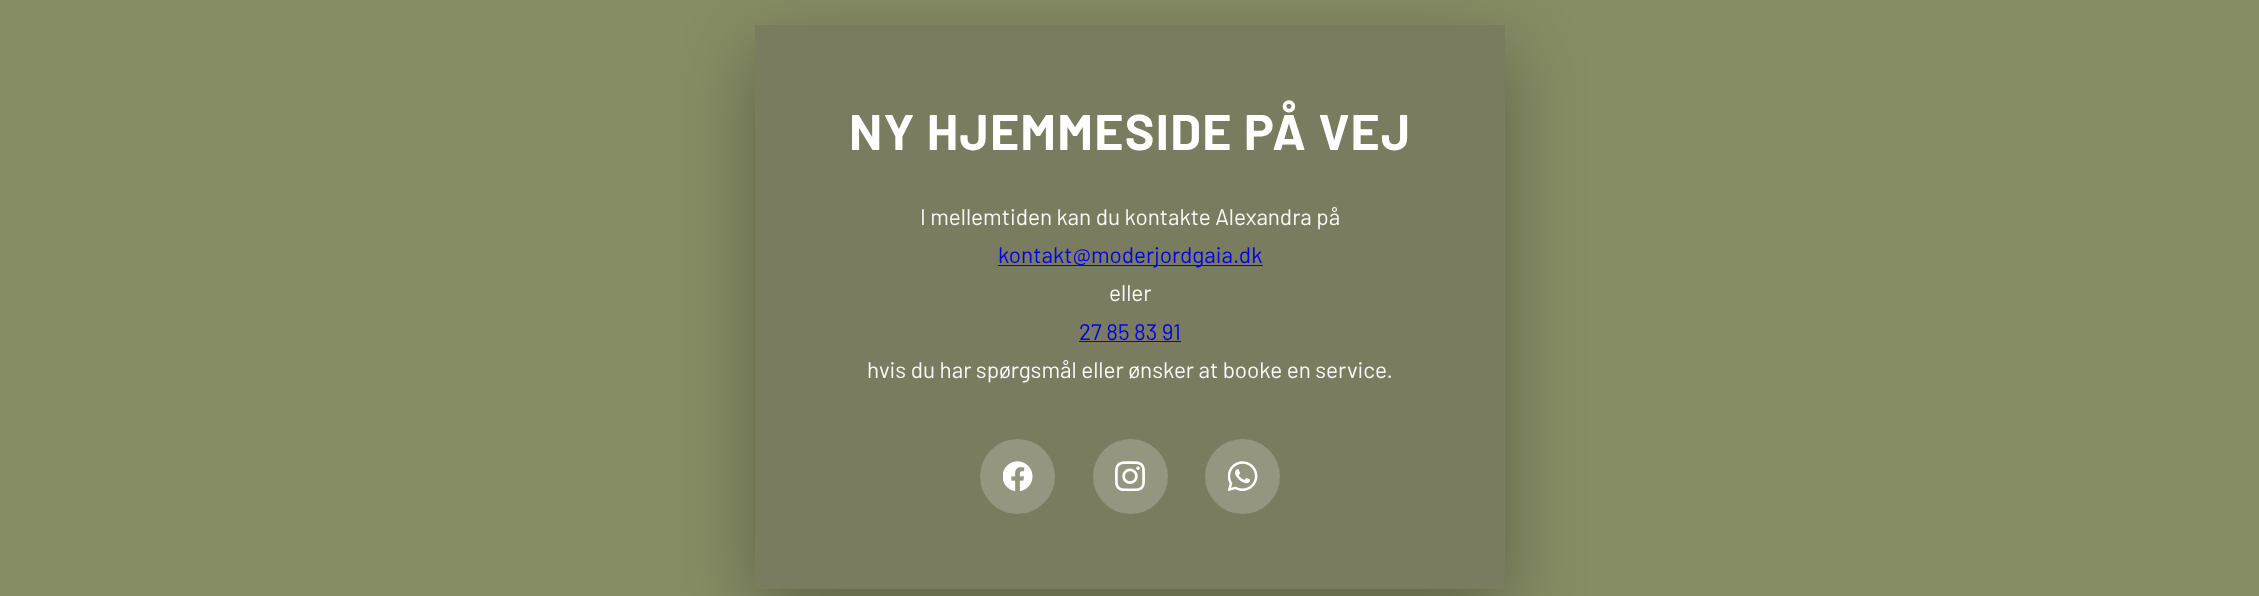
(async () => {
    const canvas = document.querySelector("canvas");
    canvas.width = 2259;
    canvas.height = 596;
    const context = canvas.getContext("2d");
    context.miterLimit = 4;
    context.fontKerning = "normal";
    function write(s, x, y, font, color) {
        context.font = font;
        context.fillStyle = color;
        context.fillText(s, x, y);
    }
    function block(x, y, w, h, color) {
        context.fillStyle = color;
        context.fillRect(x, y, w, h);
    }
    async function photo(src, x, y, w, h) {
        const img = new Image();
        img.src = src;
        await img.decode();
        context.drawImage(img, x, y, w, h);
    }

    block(0, 0, 2259, 596, "rgb(134, 141, 100)");
    context.fillStyle = "rgba(0, 0, 0, 0.3)";
    context.filter = "blur(37.5px)";
    context.beginPath();
    context.rect(755, 50, 750, 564);
    context.fill();
    context.filter = "none";
    block(755, 25, 750, 564, "rgb(121, 124, 95)");
    context.letterSpacing = "1.25px";
    write("NY HJEMMESIDE PÅ VEJ", 849, 150, "bold 50px Barlow", "rgb(255, 255, 255)");
    context.letterSpacing = "0px";
    write("I mellemtiden kan du kontakte Alexandra på", 920, 225, "22.5px Barlow", "rgb(248, 248, 247)");
    block(998, 265, 265, 1, "rgb(0, 0, 238)");
    write("kontakt@moderjordgaia.dk", 998, 263, "22.5px Barlow", "rgb(0, 0, 238)");
    write("eller", 1109, 301, "22.5px Barlow", "rgb(248, 248, 247)");
    write("27 85 83 91", 1079, 340, "22.5px Barlow", "rgb(0, 0, 238)");
    block(1079, 341, 102, 1, "rgb(0, 0, 238)");
    write("hvis du har spørgsmål eller ønsker at booke en service.", 867, 378, "22.5px Barlow", "rgb(248, 248, 247)");
    context.fillStyle = "rgb(148, 150, 127)";
    context.beginPath();
    context.arc(1017.5, 476.5, 37.5, 0, Math.PI * 2);
    context.fill();
    await photo("media/1.png", 1003, 461, 30, 30);
    context.beginPath();
    context.arc(1130.5, 476.5, 37.5, 0, Math.PI * 2);
    context.fill();
    await photo("media/2.png", 1115, 461, 30, 30);
    context.beginPath();
    context.arc(1242.5, 476.5, 37.5, 0, Math.PI * 2);
    context.fill();
    await photo("media/3.png", 1228, 461, 30, 30);
})();
